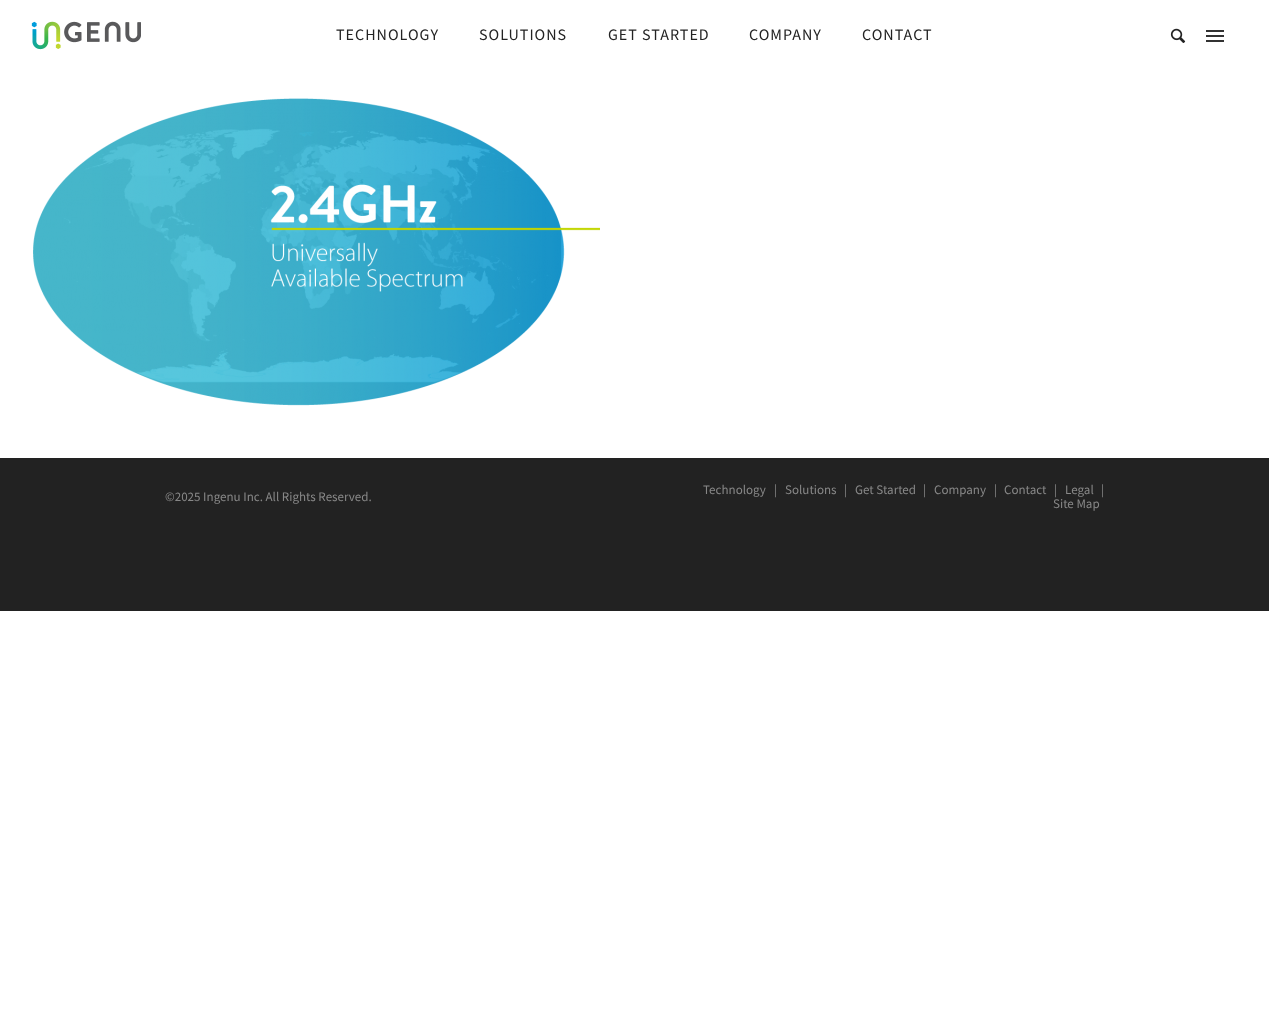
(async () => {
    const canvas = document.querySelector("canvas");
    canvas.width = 1269;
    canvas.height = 1021;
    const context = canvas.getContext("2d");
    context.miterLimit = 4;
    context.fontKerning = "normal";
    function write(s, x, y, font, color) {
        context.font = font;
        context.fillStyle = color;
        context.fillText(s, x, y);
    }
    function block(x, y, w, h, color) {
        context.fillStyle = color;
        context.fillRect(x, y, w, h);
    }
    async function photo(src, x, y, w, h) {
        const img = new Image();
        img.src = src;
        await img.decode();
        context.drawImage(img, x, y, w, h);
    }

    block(0, 0, 1269, 1021, "rgb(255, 255, 255)");
    await photo("media/1.png", 31, 21, 110, 29);
    context.letterSpacing = "1px";
    write("TECHNOLOGY", 336, 40, "16px Source Sans Pro", "rgb(35, 35, 35)");
    write("SOLUTIONS", 479, 40, "16px Source Sans Pro", "rgb(35, 35, 35)");
    write("GET STARTED", 608, 40, "16px Source Sans Pro", "rgb(35, 35, 35)");
    write("COMPANY", 749, 40, "16px Source Sans Pro", "rgb(35, 35, 35)");
    write("CONTACT", 862, 40, "16px Source Sans Pro", "rgb(35, 35, 35)");
    await photo("media/2.png", 1170, 28, 16, 15);
    block(1206, 30, 18, 2, "rgb(50, 50, 50)");
    block(1206, 35, 18, 2, "rgb(50, 50, 50)");
    block(1206, 40, 18, 2, "rgb(50, 50, 50)");
    await photo("media/3.png", 33, 98, 567, 308);
    block(0, 458, 1269, 153, "rgb(34, 34, 34)");
    context.letterSpacing = "0px";
    write("©2025 Ingenu Inc. All Rights Reserved.", 165, 501, "13px Source Sans Pro", "rgb(136, 136, 136)");
    write("Technology", 703, 494, "13px Source Sans Pro", "rgb(136, 136, 136)");
    write("|", 774, 494, "13px Source Sans Pro", "rgb(136, 136, 136)");
    write("Solutions", 785, 494, "13px Source Sans Pro", "rgb(136, 136, 136)");
    write("|", 844, 494, "13px Source Sans Pro", "rgb(136, 136, 136)");
    write("Get Started", 855, 494, "13px Source Sans Pro", "rgb(136, 136, 136)");
    write("|", 923, 494, "13px Source Sans Pro", "rgb(136, 136, 136)");
    write("Company", 934, 494, "13px Source Sans Pro", "rgb(136, 136, 136)");
    write("|", 994, 494, "13px Source Sans Pro", "rgb(136, 136, 136)");
    write("Contact", 1004, 494, "13px Source Sans Pro", "rgb(136, 136, 136)");
    write("|", 1054, 494, "13px Source Sans Pro", "rgb(136, 136, 136)");
    write("Legal", 1065, 494, "13px Source Sans Pro", "rgb(136, 136, 136)");
    write("|", 1101, 494, "13px Source Sans Pro", "rgb(136, 136, 136)");
    write("Site Map", 1053, 508, "13px Source Sans Pro", "rgb(136, 136, 136)");
})();
